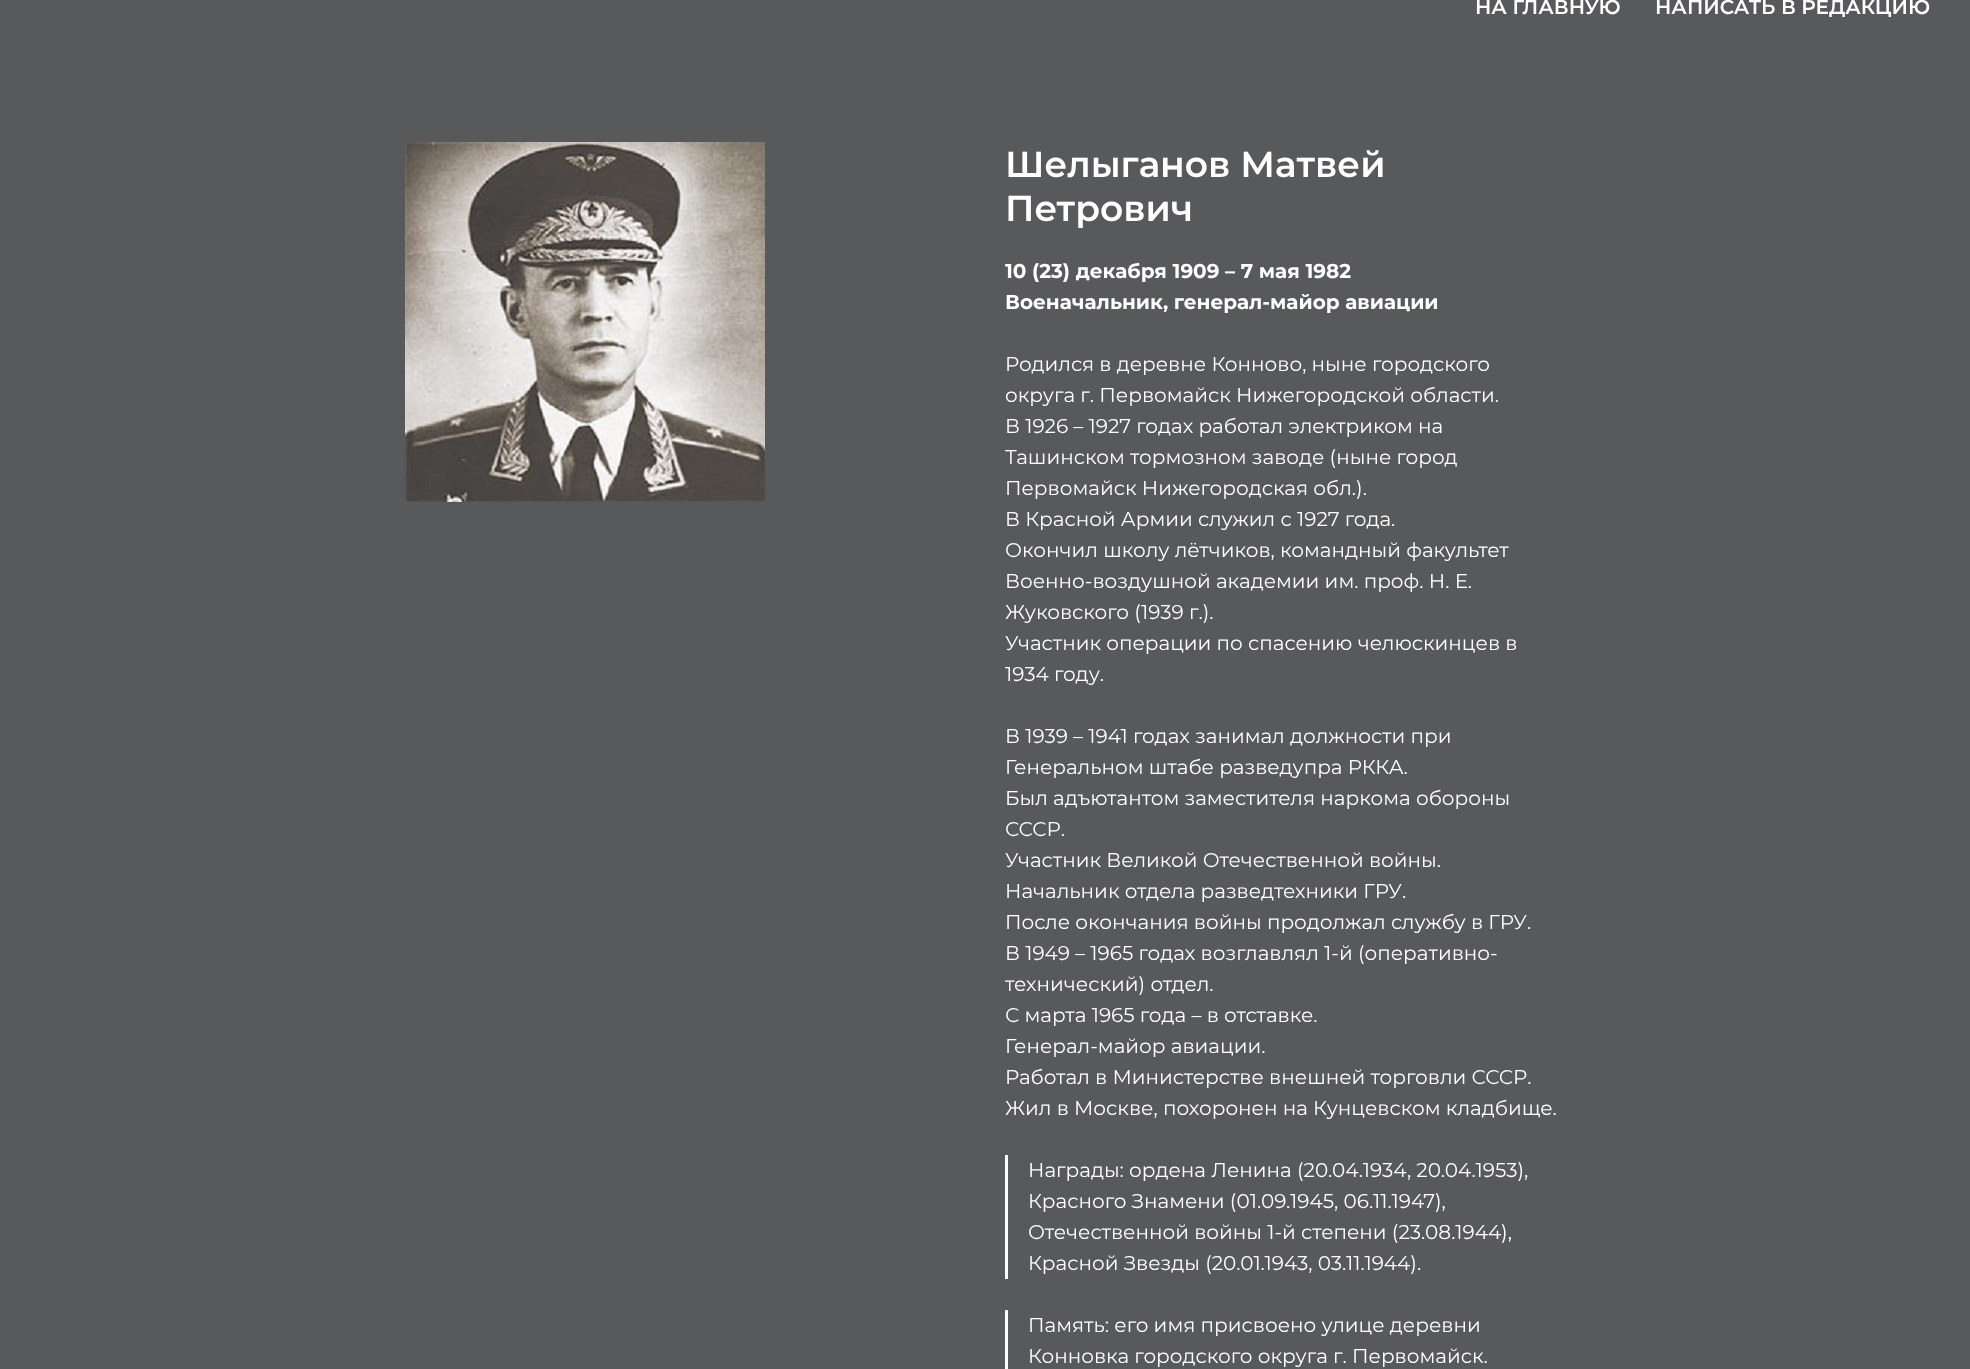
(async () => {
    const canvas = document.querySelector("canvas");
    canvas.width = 1970;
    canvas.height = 1369;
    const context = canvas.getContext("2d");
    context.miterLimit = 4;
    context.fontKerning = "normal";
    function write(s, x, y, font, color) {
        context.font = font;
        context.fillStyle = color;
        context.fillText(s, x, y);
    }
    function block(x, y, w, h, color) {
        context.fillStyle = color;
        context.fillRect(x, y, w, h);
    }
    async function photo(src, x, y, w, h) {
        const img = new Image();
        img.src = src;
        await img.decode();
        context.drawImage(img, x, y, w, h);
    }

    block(0, 0, 1970, 1369, "rgb(88, 89, 91)");
    write("НА ГЛАВНУЮ", 1475, 14, "600 20px Montserrat", "rgb(255, 255, 255)");
    write("НАПИСАТЬ В РЕДАКЦИЮ", 1655, 14, "600 20px Montserrat", "rgb(255, 255, 255)");
    await photo("media/1.png", 405, 142, 360, 360);
    write("Шелыганов Матвей", 1005, 177, "600 36px Montserrat", "rgb(255, 255, 255)");
    write("Петрович", 1005, 221, "600 36px Montserrat", "rgb(255, 255, 255)");
    write("10 (23) декабря 1909 – 7 мая 1982", 1005, 278, "bold 20px Montserrat", "rgb(255, 255, 255)");
    write("Военачальник, генерал-майор авиации", 1005, 309, "bold 20px Montserrat", "rgb(255, 255, 255)");
    write("Родился в деревне Конново, ныне городского", 1005, 371, "20px Montserrat", "rgb(255, 255, 255)");
    write("округа г. Первомайск Нижегородской области.", 1005, 402, "20px Montserrat", "rgb(255, 255, 255)");
    write("В 1926 – 1927 годах работал электриком на", 1005, 433, "20px Montserrat", "rgb(255, 255, 255)");
    write("Ташинском тормозном заводе (ныне город", 1005, 464, "20px Montserrat", "rgb(255, 255, 255)");
    write("Первомайск Нижегородская обл.).", 1005, 495, "20px Montserrat", "rgb(255, 255, 255)");
    write("В Красной Армии служил с 1927 года.", 1005, 526, "20px Montserrat", "rgb(255, 255, 255)");
    write("Окончил школу лётчиков, командный факультет", 1005, 557, "20px Montserrat", "rgb(255, 255, 255)");
    write("Военно-воздушной академии им. проф. Н. Е.", 1005, 588, "20px Montserrat", "rgb(255, 255, 255)");
    write("Жуковского (1939 г.).", 1005, 619, "20px Montserrat", "rgb(255, 255, 255)");
    write("Участник операции по спасению челюскинцев в", 1005, 650, "20px Montserrat", "rgb(255, 255, 255)");
    write("1934 году.", 1005, 681, "20px Montserrat", "rgb(255, 255, 255)");
    write("В 1939 – 1941 годах занимал должности при", 1005, 743, "20px Montserrat", "rgb(255, 255, 255)");
    write("Генеральном штабе разведупра РККА.", 1005, 774, "20px Montserrat", "rgb(255, 255, 255)");
    write("Был адъютантом заместителя наркома обороны", 1005, 805, "20px Montserrat", "rgb(255, 255, 255)");
    write("СССР.", 1005, 836, "20px Montserrat", "rgb(255, 255, 255)");
    write("Участник Великой Отечественной войны.", 1005, 867, "20px Montserrat", "rgb(255, 255, 255)");
    write("Начальник отдела разведтехники ГРУ.", 1005, 898, "20px Montserrat", "rgb(255, 255, 255)");
    write("После окончания войны продолжал службу в ГРУ.", 1005, 929, "20px Montserrat", "rgb(255, 255, 255)");
    write("В 1949 – 1965 годах возглавлял 1-й (оперативно-", 1005, 960, "20px Montserrat", "rgb(255, 255, 255)");
    write("технический) отдел.", 1005, 991, "20px Montserrat", "rgb(255, 255, 255)");
    write("С марта 1965 года – в отставке.", 1005, 1022, "20px Montserrat", "rgb(255, 255, 255)");
    write("Генерал-майор авиации.", 1005, 1053, "20px Montserrat", "rgb(255, 255, 255)");
    write("Работал в Министерстве внешней торговли СССР.", 1005, 1084, "20px Montserrat", "rgb(255, 255, 255)");
    write("Жил в Москве, похоронен на Кунцевском кладбище.", 1005, 1115, "20px Montserrat", "rgb(255, 255, 255)");
    block(1005, 1155, 3, 124, "rgb(255, 255, 255)");
    write("Награды: ордена Ленина (20.04.1934, 20.04.1953),", 1028, 1177, "20px Montserrat", "rgb(255, 255, 255)");
    write("Красного Знамени (01.09.1945, 06.11.1947),", 1028, 1208, "20px Montserrat", "rgb(255, 255, 255)");
    write("Отечественной войны 1-й степени (23.08.1944),", 1028, 1239, "20px Montserrat", "rgb(255, 255, 255)");
    write("Красной Звезды (20.01.1943, 03.11.1944).", 1028, 1270, "20px Montserrat", "rgb(255, 255, 255)");
    block(1005, 1310, 3, 59, "rgb(255, 255, 255)");
    write("Память: его имя присвоено улице деревни", 1028, 1332, "20px Montserrat", "rgb(255, 255, 255)");
    write("Конновка городского округа г. Первомайск.", 1028, 1363, "20px Montserrat", "rgb(255, 255, 255)");
})();
